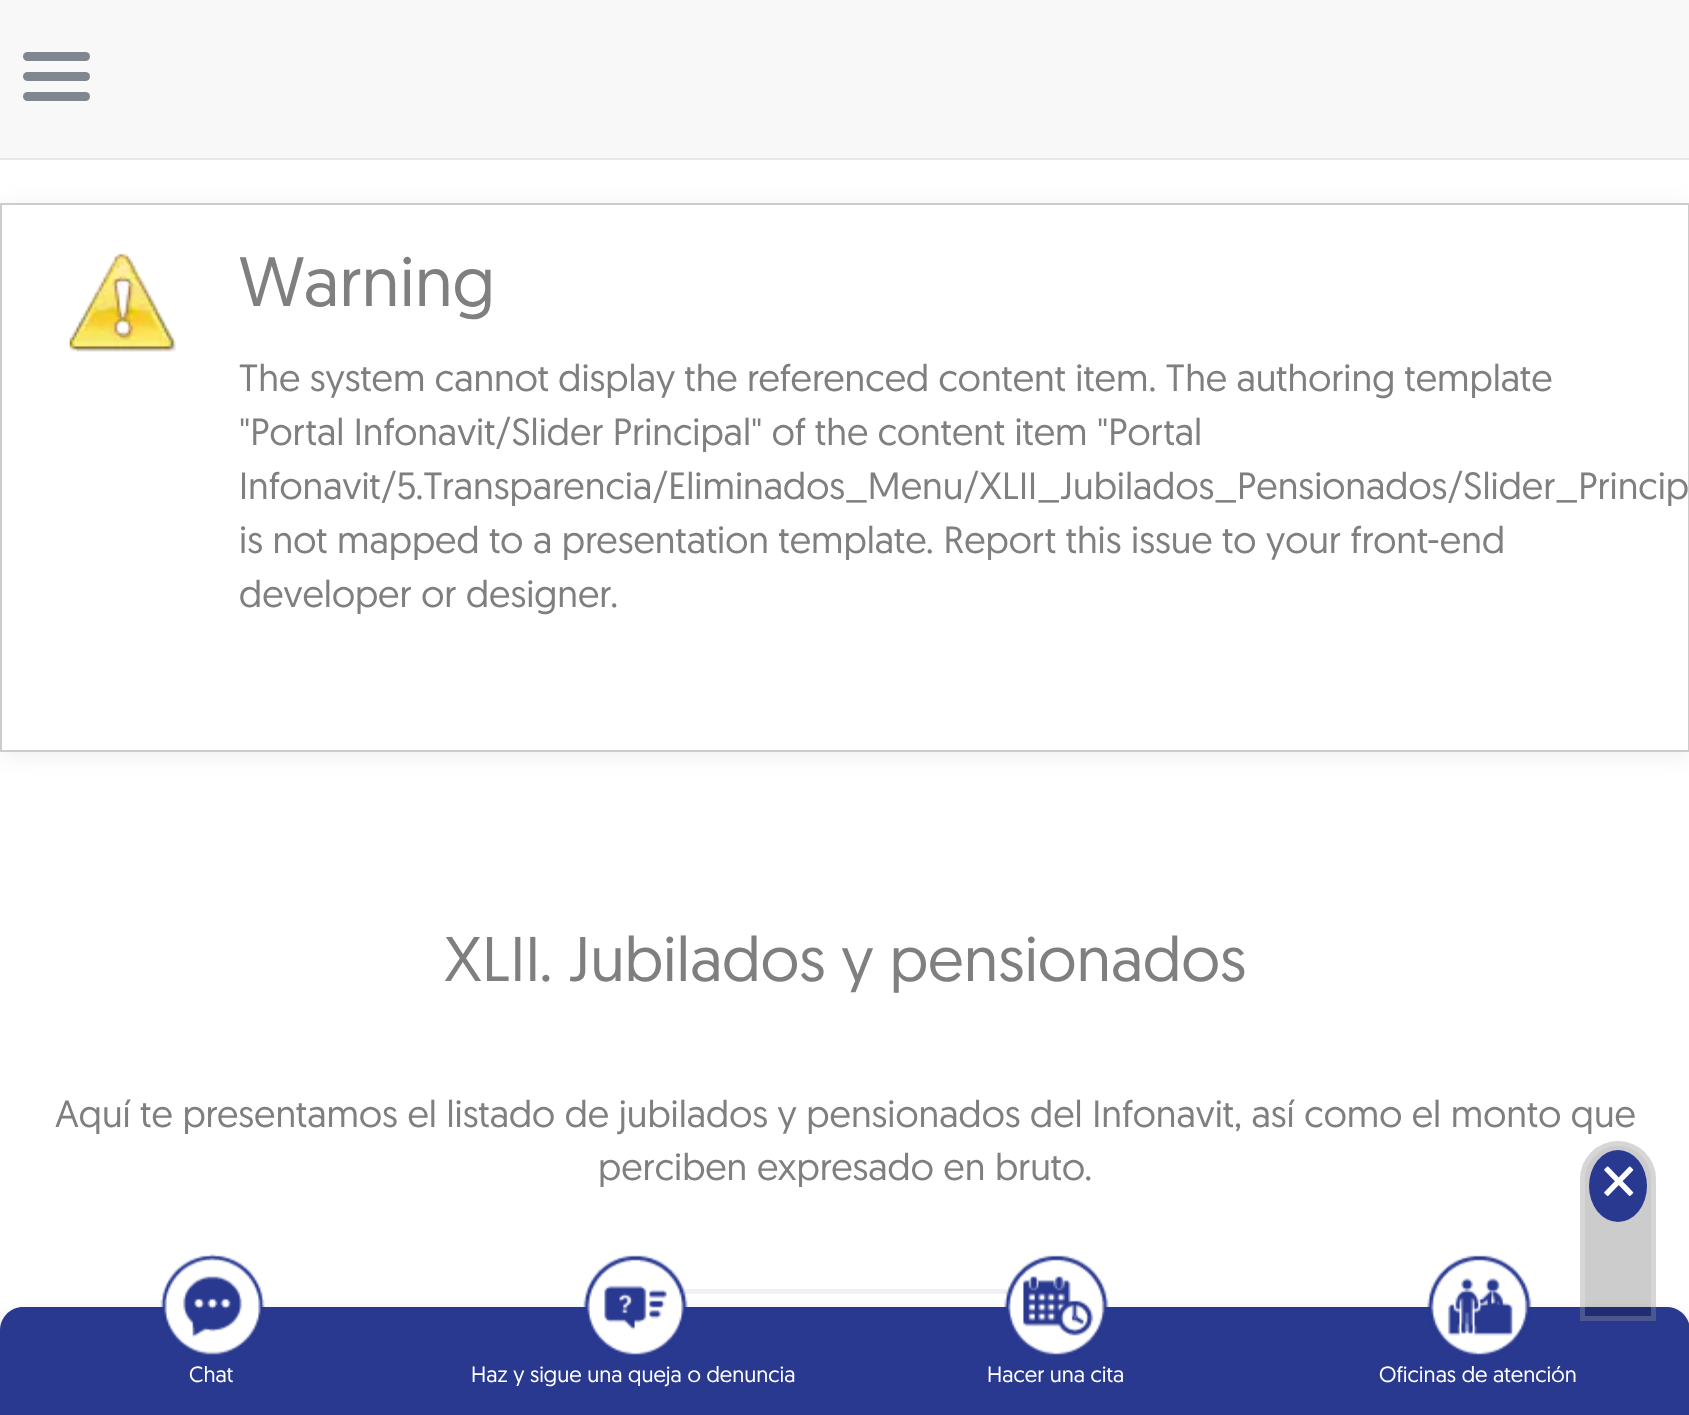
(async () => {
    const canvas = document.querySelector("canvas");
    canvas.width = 1689;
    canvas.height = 1415;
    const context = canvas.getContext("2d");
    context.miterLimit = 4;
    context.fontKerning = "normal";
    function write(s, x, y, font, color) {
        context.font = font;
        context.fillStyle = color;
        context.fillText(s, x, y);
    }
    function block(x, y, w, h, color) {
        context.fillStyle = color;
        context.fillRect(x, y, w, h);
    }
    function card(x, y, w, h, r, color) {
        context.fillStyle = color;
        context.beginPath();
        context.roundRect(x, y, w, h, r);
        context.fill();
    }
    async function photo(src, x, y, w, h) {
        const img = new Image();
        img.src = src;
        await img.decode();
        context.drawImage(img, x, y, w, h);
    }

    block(0, 0, 1689, 1415, "rgb(255, 255, 255)");
    block(0, 0, 1689, 158, "rgb(248, 248, 248)");
    block(0, 158, 1689, 2, "rgb(231, 231, 231)");
    card(23, 52, 67, 9, 4.5, "rgb(129, 135, 145)");
    card(23, 72, 67, 9, 4.5, "rgb(129, 135, 145)");
    card(23, 92, 67, 9, 4.5, "rgb(129, 135, 145)");
    context.fillStyle = "rgb(238, 238, 238)";
    context.filter = "blur(11px)";
    context.beginPath();
    context.rect(0, 207, 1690, 549);
    context.fill();
    context.filter = "none";
    context.fillStyle = "rgb(255, 255, 255)";
    context.beginPath();
    context.rect(1, 204, 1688, 547);
    context.fill();
    context.strokeStyle = "rgb(204, 204, 204)";
    context.lineWidth = 2;
    context.stroke();
    await photo("media/1.png", 69, 253, 107, 99);
    write("Warning", 239, 306, "69.5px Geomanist", "rgb(127, 127, 127)");
    context.wordSpacing = "-0.25px";
    write("The system cannot display the referenced content item. The authoring template", 239, 391, "37.8px Geomanist", "rgb(127, 127, 127)");
    write("\"Portal Infonavit/Slider Principal\" of the content item \"Portal", 239, 445, "37.8px Geomanist", "rgb(127, 127, 127)");
    context.wordSpacing = "0px";
    write("Infonavit/5.Transparencia/Eliminados_Menu/XLII_Jubilados_Pensionados/Slider_Princip", 239, 499, "37.8px Geomanist", "rgb(127, 127, 127)");
    write("is not mapped to a presentation template. Report this issue to your front-end", 239, 553, "37.8px Geomanist", "rgb(127, 127, 127)");
    write("developer or designer.", 239, 607, "37.8px Geomanist", "rgb(127, 127, 127)");
    write("XLII. Jubilados y pensionados", 444, 981, "63px Geomanist", "rgb(127, 127, 127)");
    write("Aquí te presentamos el listado de jubilados y pensionados del Infonavit, así como el monto que", 55, 1127, "37.8px Geomanist", "rgb(127, 127, 127)");
    write("perciben expresado en bruto.", 598, 1180, "37.8px Geomanist", "rgb(127, 127, 127)");
    context.strokeStyle = "rgb(240, 241, 244)";
    context.lineWidth = 5;
    context.strokeRect(601.5, 1291.5, 490, 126);
    context.fillStyle = "rgba(0, 0, 0, 0.19)";
    context.filter = "blur(5.5px)";
    context.beginPath();
    context.roundRect(0, 1312, 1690, 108, 23);
    context.fill();
    context.filter = "none";
    context.fillStyle = "rgb(41, 57, 144)";
    context.beginPath();
    context.moveTo(23, 1307);
    context.lineTo(1667, 1307);
    context.bezierCurveTo(1679.5, 1307, 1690, 1317.5, 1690, 1330);
    context.lineTo(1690, 1415);
    context.lineTo(0, 1415);
    context.lineTo(0, 1330);
    context.bezierCurveTo(0, 1317.5, 10.5, 1307, 23, 1307);
    context.closePath();
    context.fill();
    context.fillStyle = "rgba(0, 0, 0, 0.2)";
    context.beginPath();
    context.roundRect(1580, 1141, 76, 180, [38, 38, 0, 0]);
    context.fill();
    context.beginPath();
    context.roundRect(1582.5, 1143.5, 71, 175, [35.5, 35.5, 0, 0]);
    context.strokeStyle = "rgba(255, 255, 255, 0.2)";
    context.stroke();
    context.fillStyle = "rgb(41, 57, 144)";
    context.beginPath();
    context.ellipse(1618, 1186, 29, 36, 0, 0, Math.PI * 2);
    context.fill();
    write("🗙", 1602, 1193, "44px 'Noto Sans Symbols 2'", "rgb(255, 255, 255)");
    await photo("media/2.png", 160, 1253, 105, 102);
    write("Chat", 189, 1382, "22px Geomanist", "rgb(255, 255, 255)");
    await photo("media/3.png", 583, 1255, 105, 100);
    write("Haz y sigue una queja o denuncia", 471, 1382, "22px Geomanist", "rgb(255, 255, 255)");
    await photo("media/4.png", 1004, 1255, 105, 100);
    write("Hacer una cita", 987, 1382, "22px Geomanist", "rgb(255, 255, 255)");
    await photo("media/5.png", 1427, 1255, 105, 100);
    write("Oficinas de atención", 1379, 1382, "22px Geomanist", "rgb(255, 255, 255)");
})();
